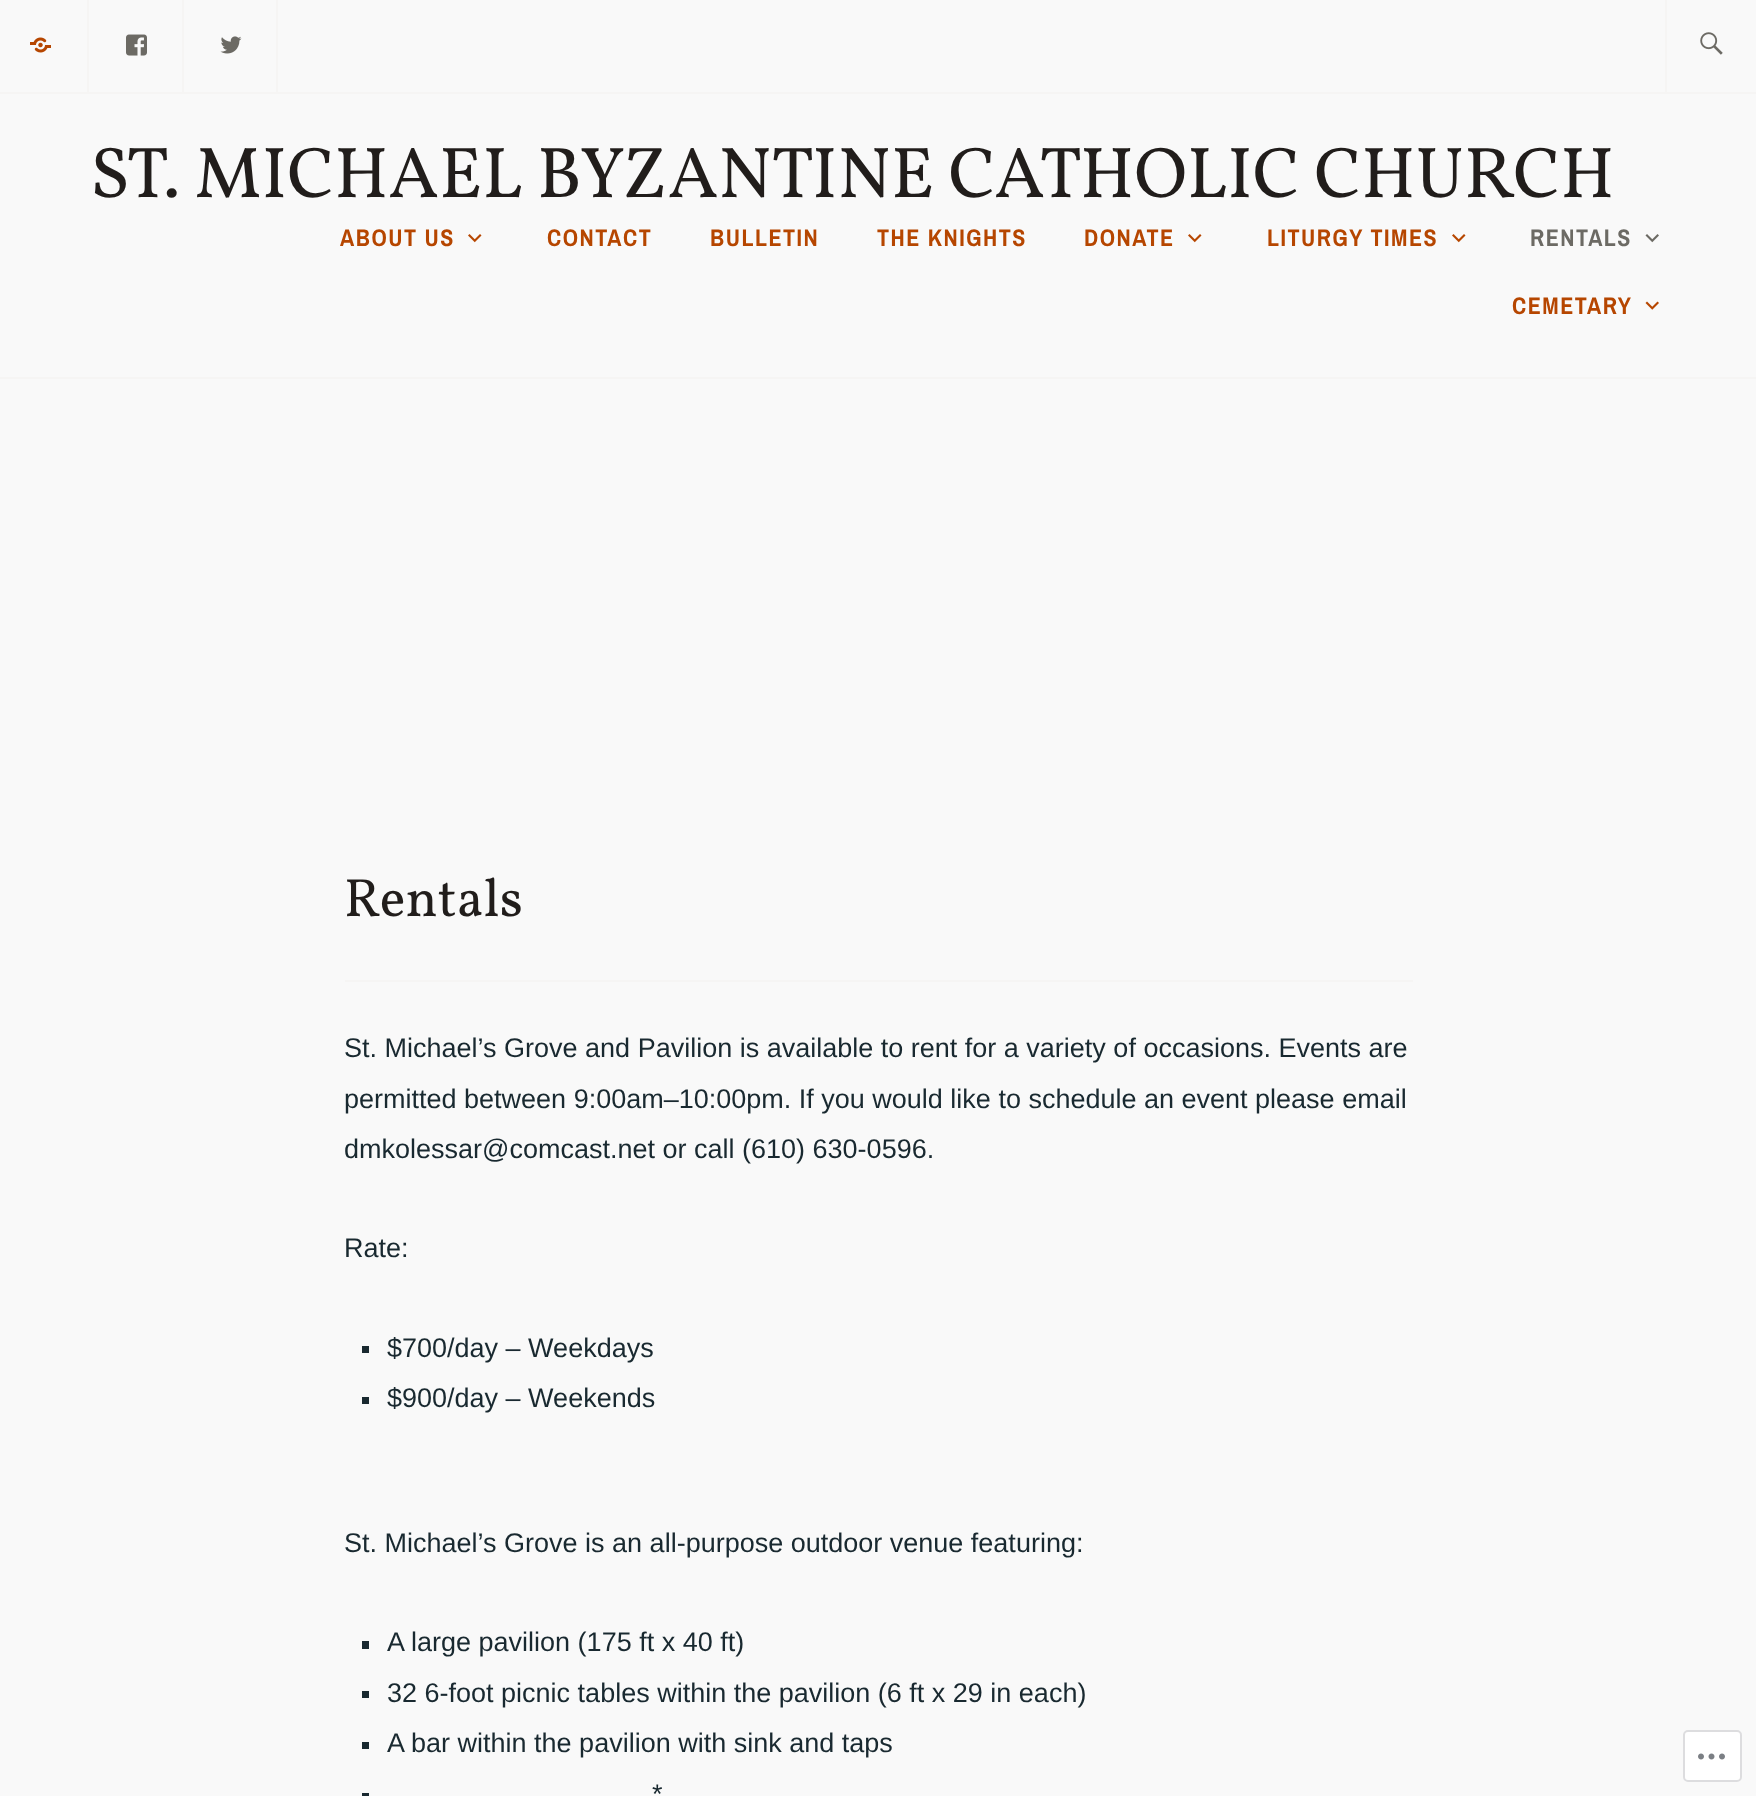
(async () => {
    const canvas = document.querySelector("canvas");
    canvas.width = 1756;
    canvas.height = 1796;
    const context = canvas.getContext("2d");
    context.miterLimit = 4;
    context.fontKerning = "normal";
    function write(s, x, y, font, color) {
        context.font = font;
        context.fillStyle = color;
        context.fillText(s, x, y);
    }
    function block(x, y, w, h, color) {
        context.fillStyle = color;
        context.fillRect(x, y, w, h);
    }
    async function photo(src, x, y, w, h) {
        const img = new Image();
        img.src = src;
        await img.decode();
        context.drawImage(img, x, y, w, h);
    }

    block(0, 0, 1756, 1796, "rgb(249, 249, 249)");
    block(0, 377, 1756, 2, "rgb(246, 245, 244)");
    block(0, 92, 1756, 2, "rgb(246, 245, 244)");
    block(87, 0, 2, 92, "rgb(246, 245, 244)");
    await photo("media/1.png", 30, 37, 21, 16);
    block(182, 0, 2, 92, "rgb(246, 245, 244)");
    await photo("media/2.png", 126, 34, 21, 22);
    block(276, 0, 2, 92, "rgb(246, 245, 244)");
    await photo("media/3.png", 220, 36, 22, 18);
    block(1665, 0, 2, 92, "rgb(246, 245, 244)");
    await photo("media/4.png", 1700, 32, 23, 23);
    write("ST. MICHAEL BYZANTINE CATHOLIC CHURCH", 90, 197, "72px Vollkorn", "rgb(33, 29, 27)");
    context.letterSpacing = "1.5px";
    write("ABOUT US", 340, 246, "bold 24px Archivo Narrow", "rgb(182, 70, 0)");
    await photo("media/5.png", 468, 234, 14, 9);
    write("CONTACT", 547, 246, "bold 24px Archivo Narrow", "rgb(182, 70, 0)");
    write("BULLETIN", 710, 246, "bold 24px Archivo Narrow", "rgb(182, 70, 0)");
    write("THE KNIGHTS", 877, 246, "bold 24px Archivo Narrow", "rgb(182, 70, 0)");
    write("DONATE", 1084, 246, "bold 24px Archivo Narrow", "rgb(182, 70, 0)");
    await photo("media/5.png", 1188, 234, 14, 9);
    write("LITURGY TIMES", 1267, 246, "bold 24px Archivo Narrow", "rgb(182, 70, 0)");
    await photo("media/5.png", 1452, 234, 14, 9);
    write("RENTALS", 1530, 246, "bold 24px Archivo Narrow", "rgb(108, 106, 100)");
    await photo("media/6.png", 1645, 234, 14, 9);
    write("CEMETARY", 1512, 314, "bold 24px Archivo Narrow", "rgb(182, 70, 0)");
    await photo("media/7.png", 1645, 301, 14, 9);
    block(345, 980, 1068, 2, "rgb(246, 245, 244)");
    context.letterSpacing = "0px";
    write("Rentals", 344, 916, "54px Vollkorn", "rgb(33, 29, 27)");
    write("St. Michael’s Grove and Pavilion is available to rent for a variety of occasions. Events are", 344, 1057, "27px Liberation Sans", "rgb(25, 41, 48)");
    write("permitted between 9:00am–10:00pm. If you would like to schedule an event please email", 344, 1108, "27px Liberation Sans", "rgb(25, 41, 48)");
    write("dmkolessar@comcast.net or call (610) 630-0596.", 344, 1158, "27px Liberation Sans", "rgb(25, 41, 48)");
    write("Rate:", 344, 1257, "27px Liberation Sans", "rgb(25, 41, 48)");
    block(362, 1346, 7, 7, "rgb(25, 41, 48)");
    write("$700/day – Weekdays", 387, 1357, "27px Liberation Sans", "rgb(25, 41, 48)");
    block(362, 1397, 7, 7, "rgb(25, 41, 48)");
    write("$900/day – Weekends", 387, 1407, "27px Liberation Sans", "rgb(25, 41, 48)");
    write("St. Michael’s Grove is an all-purpose outdoor venue featuring:", 344, 1552, "27px Liberation Sans", "rgb(25, 41, 48)");
    block(362, 1641, 7, 8, "rgb(25, 41, 48)");
    write("A large pavilion (175 ft x 40 ft)", 387, 1651, "27px Liberation Sans", "rgb(25, 41, 48)");
    block(362, 1691, 7, 7, "rgb(25, 41, 48)");
    write("32 6-foot picnic tables within the pavilion (6 ft x 29 in each)", 387, 1702, "27px Liberation Sans", "rgb(25, 41, 48)");
    block(362, 1742, 7, 7, "rgb(25, 41, 48)");
    write("A bar within the pavilion with sink and taps", 387, 1752, "27px Liberation Sans", "rgb(25, 41, 48)");
    write("*", 652, 1803, "27px Liberation Sans", "rgb(25, 41, 48)");
    block(362, 1793, 7, 3, "rgb(25, 41, 48)");
    context.fillStyle = "rgb(255, 255, 255)";
    context.beginPath();
    context.roundRect(1684, 1731, 57, 50, 4);
    context.fill();
    context.strokeStyle = "rgb(221, 221, 223)";
    context.lineWidth = 2;
    context.stroke();
    await photo("media/8.png", 1698, 1753, 27, 7);
})();
